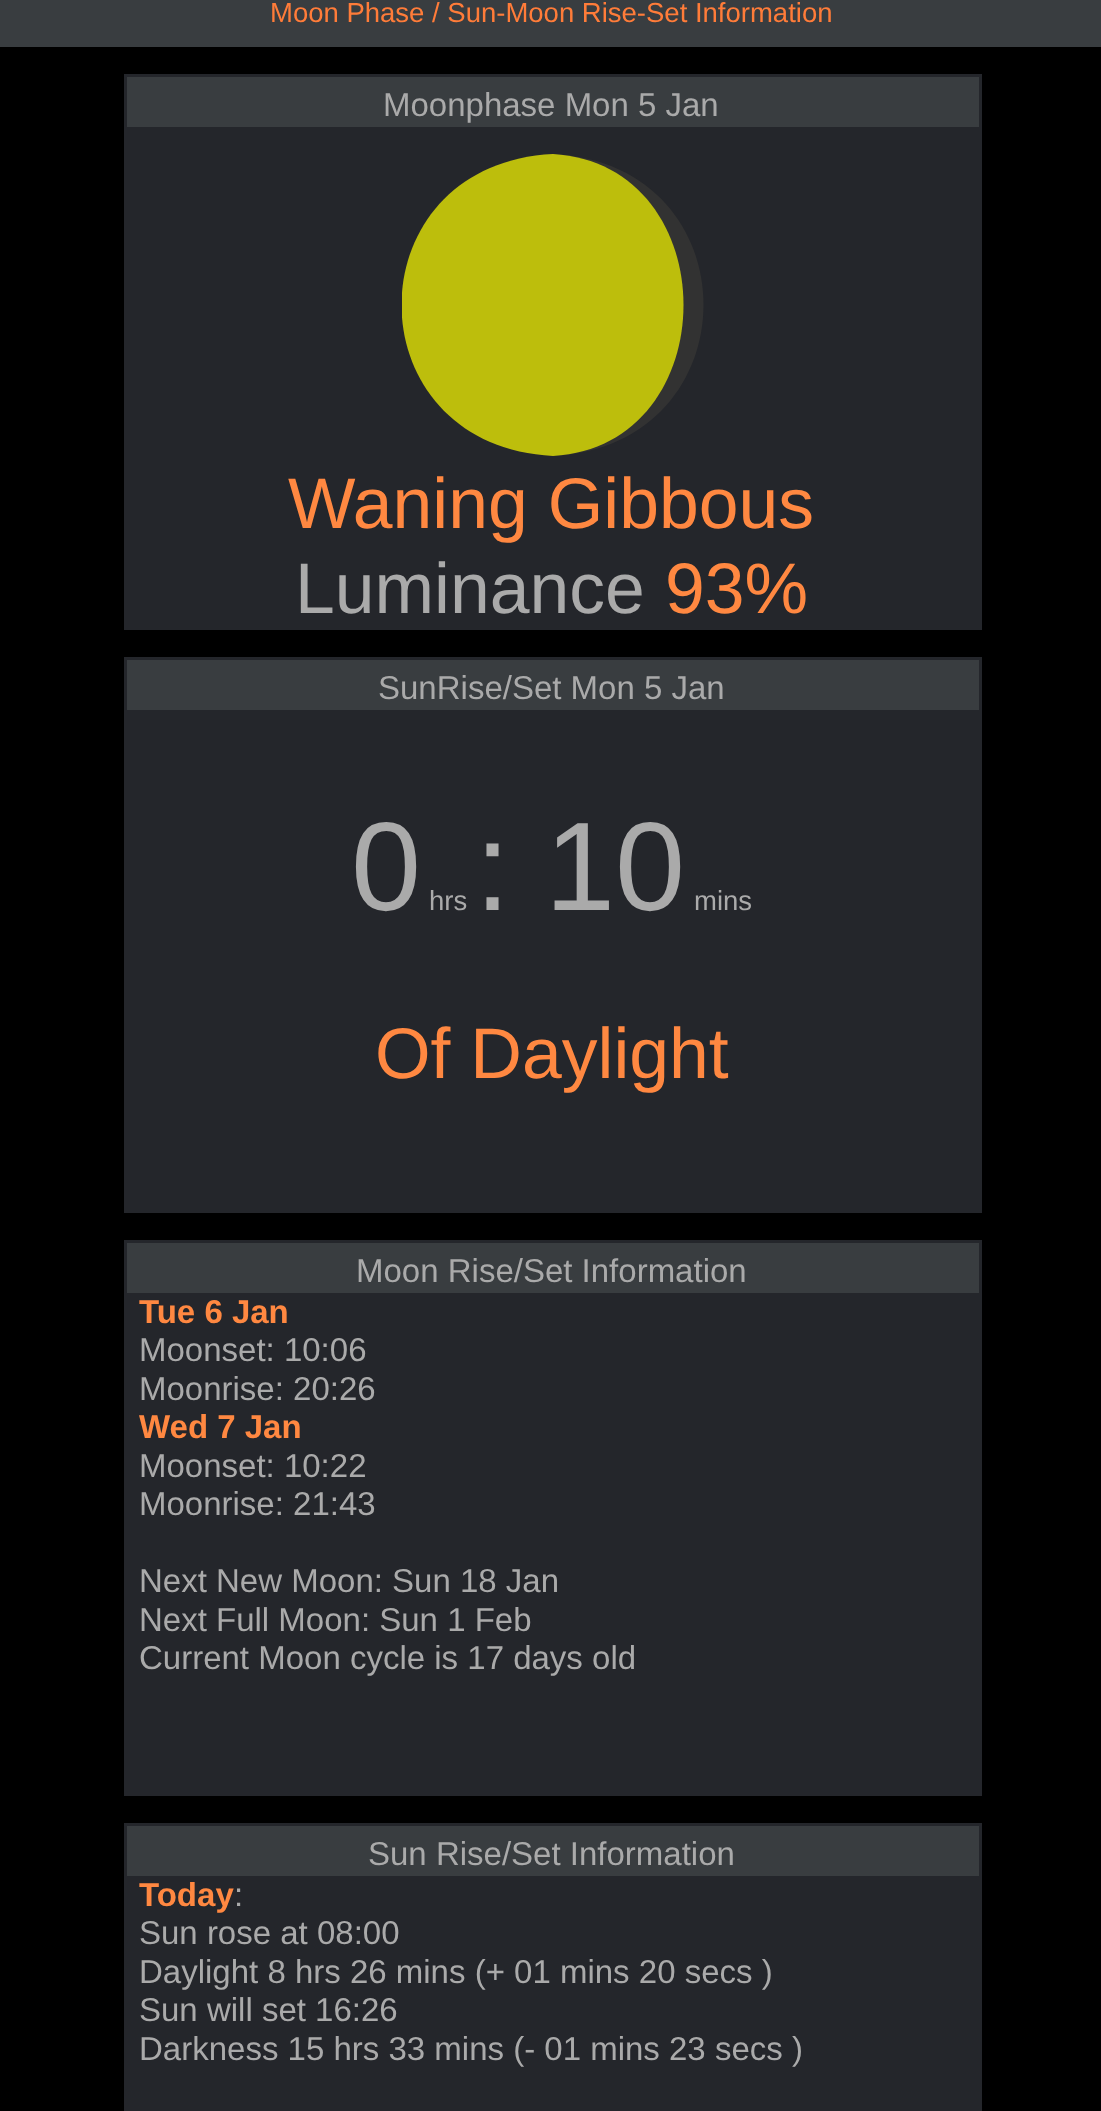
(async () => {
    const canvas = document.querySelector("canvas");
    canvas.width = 1101;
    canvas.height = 2111;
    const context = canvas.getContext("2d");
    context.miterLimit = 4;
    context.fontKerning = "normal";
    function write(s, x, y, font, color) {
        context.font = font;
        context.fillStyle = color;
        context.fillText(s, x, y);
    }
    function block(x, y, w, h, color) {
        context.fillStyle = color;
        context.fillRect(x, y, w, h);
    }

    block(0, 0, 1101, 2111, "rgb(0, 0, 0)");
    block(0, 0, 1101, 47, "rgb(57, 61, 64)");
    write("Moon Phase / Sun-Moon Rise-Set Information", 270, 22, "27.5px Liberation Sans", "rgb(255, 124, 57)");
    block(124, 74, 858, 556, "rgb(36, 38, 43)");
    block(127, 77, 852, 50, "rgb(57, 61, 64)");
    write("Moonphase Mon 5 Jan", 383, 116, "33px Liberation Sans", "rgb(170, 170, 170)");
    context.fillStyle = "rgb(50, 50, 50)";
    context.beginPath();
    context.moveTo(553, 154);
    context.bezierCurveTo(727, 164, 727, 446, 553, 456);
    context.bezierCurveTo(754, 446, 754, 164, 553, 154);
    context.fill();
    context.save();
    context.beginPath();
    context.rect(402, 154, 302, 303);
    context.clip();
    context.fillStyle = "rgba(255, 255, 0, 0.7)";
    context.beginPath();
    context.moveTo(553, 154);
    context.bezierCurveTo(727, 164, 727, 446, 553, 456);
    context.bezierCurveTo(351, 446, 351, 164, 553, 154);
    context.fill();
    context.restore();
    write("Waning Gibbous", 288, 528, "71.5px Liberation Sans", "rgb(255, 136, 65)");
    write("Luminance", 295, 613, "71.5px Liberation Sans", "rgb(170, 170, 170)");
    write("93%", 665, 613, "71.5px Liberation Sans", "rgb(255, 136, 65)");
    block(124, 657, 858, 556, "rgb(36, 38, 43)");
    block(127, 660, 852, 50, "rgb(57, 61, 64)");
    write("SunRise/Set Mon 5 Jan", 378, 699, "33px Liberation Sans", "rgb(170, 170, 170)");
    write("0", 351, 910, "126px Liberation Sans", "rgb(170, 170, 170)");
    write("hrs", 429, 910, "27.5px Liberation Sans", "rgb(170, 170, 170)");
    write(": 10", 475, 910, "126px Liberation Sans", "rgb(170, 170, 170)");
    write("mins", 694, 910, "27.5px Liberation Sans", "rgb(170, 170, 170)");
    write("Of Daylight", 375, 1078, "71.5px Liberation Sans", "rgb(255, 136, 65)");
    block(124, 1240, 858, 556, "rgb(36, 38, 43)");
    block(127, 1243, 852, 50, "rgb(57, 61, 64)");
    write("Moon Rise/Set Information", 356, 1282, "33px Liberation Sans", "rgb(170, 170, 170)");
    write("Tue 6 Jan", 139, 1323, "bold 33px Liberation Sans", "rgb(255, 136, 65)");
    write("Moonset: 10:06", 139, 1361, "33px Liberation Sans", "rgb(170, 170, 170)");
    write("Moonrise: 20:26", 139, 1400, "33px Liberation Sans", "rgb(170, 170, 170)");
    write("Wed 7 Jan", 139, 1438, "bold 33px Liberation Sans", "rgb(255, 136, 65)");
    write("Moonset: 10:22", 139, 1477, "33px Liberation Sans", "rgb(170, 170, 170)");
    write("Moonrise: 21:43", 139, 1515, "33px Liberation Sans", "rgb(170, 170, 170)");
    write("Next New Moon: Sun 18 Jan", 139, 1592, "33px Liberation Sans", "rgb(170, 170, 170)");
    write("Next Full Moon: Sun 1 Feb", 139, 1631, "33px Liberation Sans", "rgb(170, 170, 170)");
    write("Current Moon cycle is 17 days old", 139, 1669, "33px Liberation Sans", "rgb(170, 170, 170)");
    block(124, 1823, 858, 288, "rgb(36, 38, 43)");
    block(127, 1826, 852, 50, "rgb(57, 61, 64)");
    write("Sun Rise/Set Information", 368, 1865, "33px Liberation Sans", "rgb(170, 170, 170)");
    write("Today", 139, 1906, "bold 33px Liberation Sans", "rgb(255, 136, 65)");
    write(":", 234, 1906, "33px Liberation Sans", "rgb(170, 170, 170)");
    write("Sun rose at 08:00", 139, 1944, "33px Liberation Sans", "rgb(170, 170, 170)");
    write("Daylight 8 hrs 26 mins (+ 01 mins 20 secs )", 139, 1983, "33px Liberation Sans", "rgb(170, 170, 170)");
    write("Sun will set 16:26", 139, 2021, "33px Liberation Sans", "rgb(170, 170, 170)");
    write("Darkness 15 hrs 33 mins (- 01 mins 23 secs )", 139, 2060, "33px Liberation Sans", "rgb(170, 170, 170)");
})();
